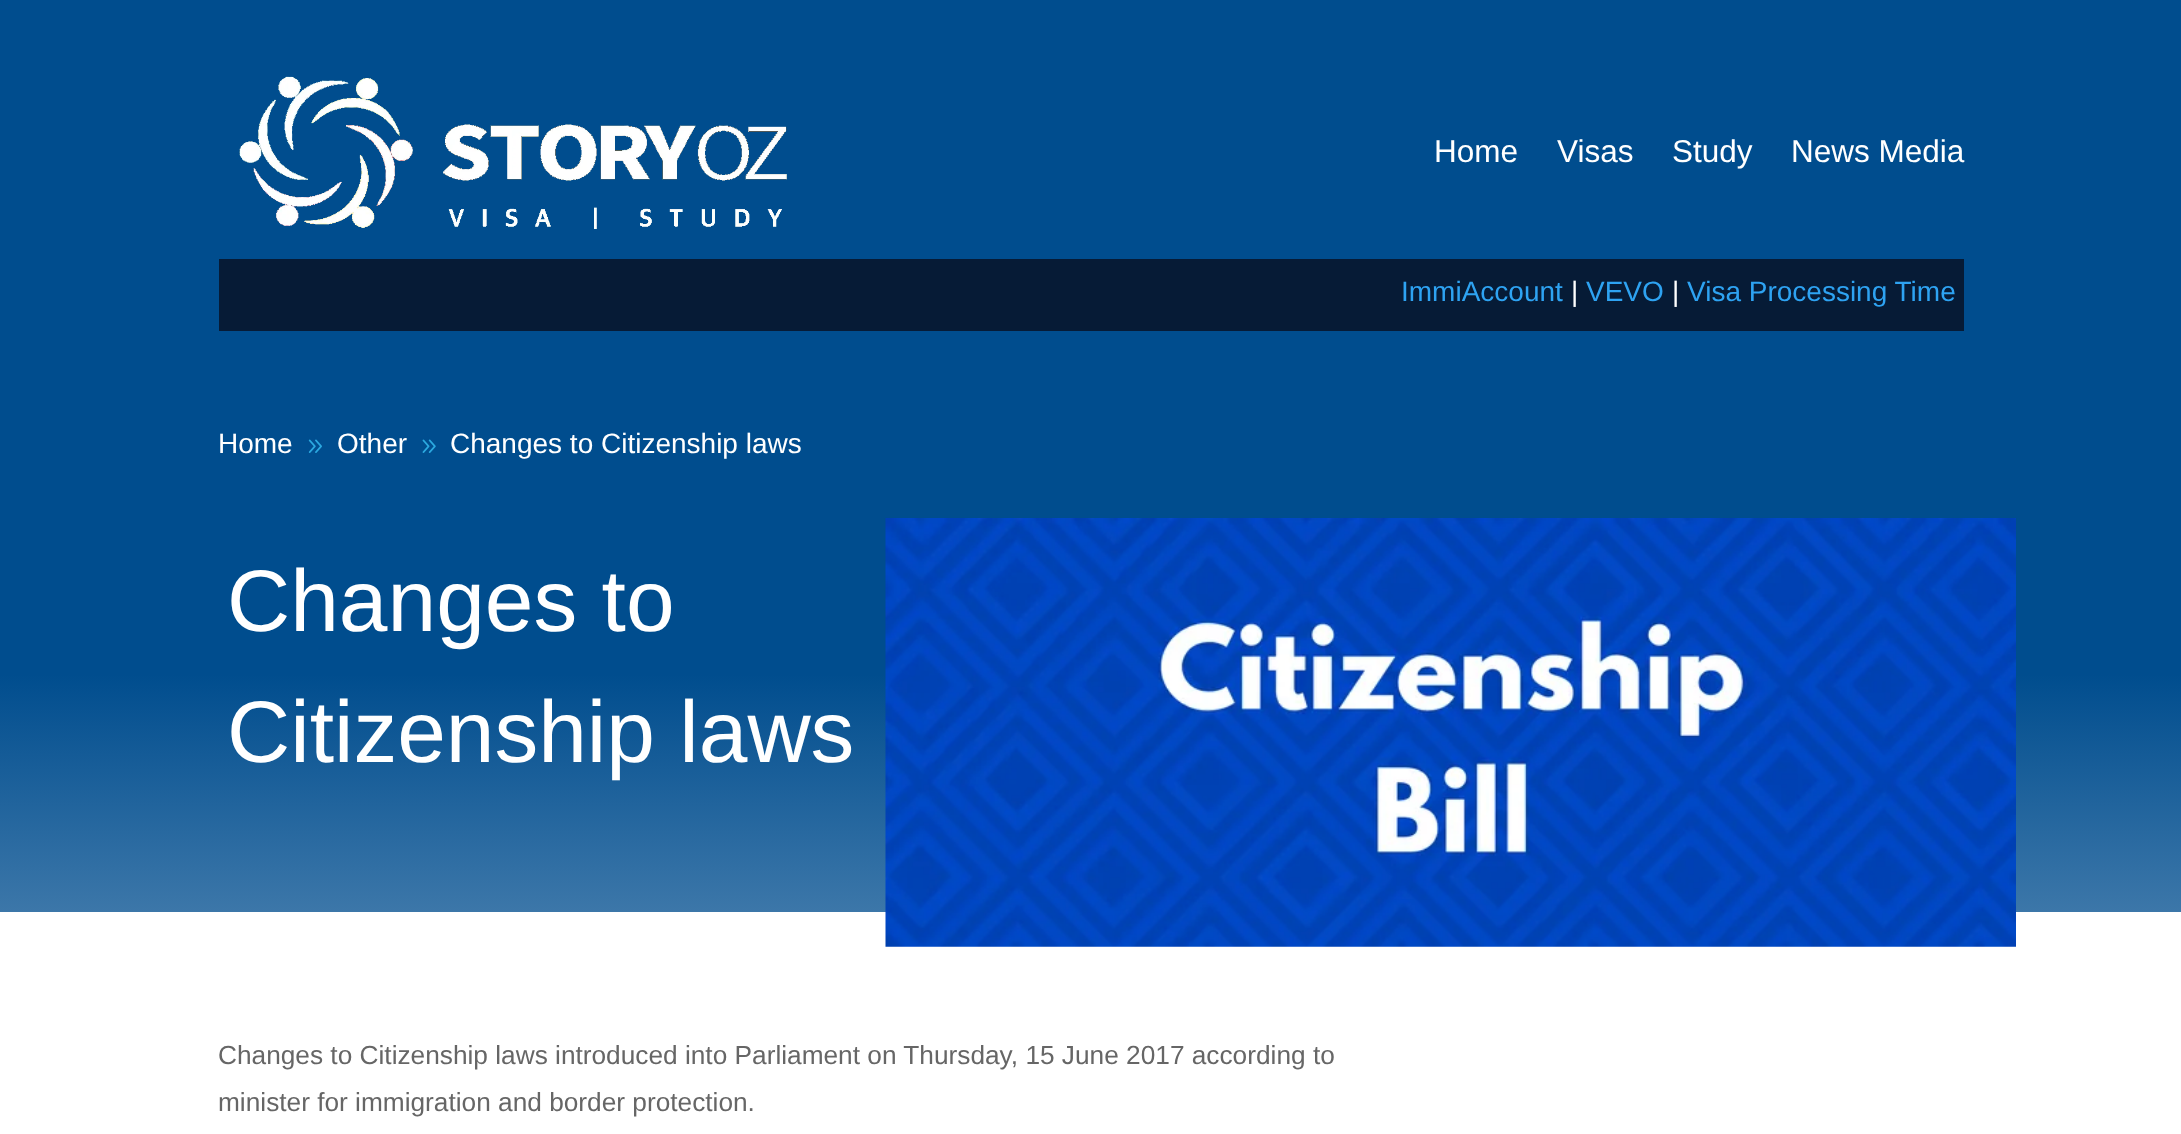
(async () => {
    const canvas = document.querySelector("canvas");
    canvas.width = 2181;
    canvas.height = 1134;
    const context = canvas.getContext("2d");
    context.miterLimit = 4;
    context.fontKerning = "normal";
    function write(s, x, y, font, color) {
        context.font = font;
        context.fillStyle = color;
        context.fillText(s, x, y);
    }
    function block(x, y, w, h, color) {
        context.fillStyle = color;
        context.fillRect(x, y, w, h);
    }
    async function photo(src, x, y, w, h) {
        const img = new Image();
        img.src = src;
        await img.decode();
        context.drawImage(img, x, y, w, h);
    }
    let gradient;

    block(0, 0, 2181, 1134, "rgb(255, 255, 255)");
    block(0, 0, 2181, 331, "rgb(0, 77, 142)");
    await photo("media/1.png", 239, 76, 548, 153);
    write("Home", 1434, 162, "31.5px Liberation Sans", "rgb(255, 255, 255)");
    write("Visas", 1557, 162, "31.5px Liberation Sans", "rgb(255, 255, 255)");
    write("Study", 1672, 162, "31.5px Liberation Sans", "rgb(255, 255, 255)");
    write("News Media", 1791, 162, "31.5px Liberation Sans", "rgb(255, 255, 255)");
    block(219, 259, 1745, 72, "rgb(6, 27, 54)");
    write("ImmiAccount", 1401, 301, "28px Liberation Sans", "rgb(46, 163, 242)");
    write("|", 1571, 301, "28px Liberation Sans", "rgb(255, 255, 255)");
    write("VEVO", 1586, 301, "28px Liberation Sans", "rgb(46, 163, 242)");
    write("|", 1672, 301, "28px Liberation Sans", "rgb(255, 255, 255)");
    write("Visa Processing Time", 1687, 301, "28px Liberation Sans", "rgb(46, 163, 242)");
    gradient = context.createLinearGradient(1091, 327, 1091, 947);
    gradient.addColorStop(0.56, "rgb(0, 77, 142)");
    gradient.addColorStop(1, "rgb(69, 125, 173)");
    context.fillStyle = gradient;
    context.fillRect(0, 331, 2181, 581);
    write("Home", 218, 453, "28px Liberation Sans", "rgb(255, 255, 255)");
    await photo("media/2.png", 308, 439, 14, 14);
    write("Other", 337, 453, "28px Liberation Sans", "rgb(255, 255, 255)");
    await photo("media/3.png", 422, 439, 14, 14);
    write("Changes to Citizenship laws", 450, 453, "28px Liberation Sans", "rgb(255, 255, 255)");
    write("Changes to", 227, 631, "87.5px Liberation Sans", "rgb(255, 255, 255)");
    write("Citizenship laws", 227, 762, "87.5px Liberation Sans", "rgb(255, 255, 255)");
    await photo("media/4.png", 885, 518, 1131, 429);
    write("Changes to Citizenship laws introduced into Parliament on Thursday, 15 June 2017 according to", 218, 1064, "26.25px Liberation Sans", "rgb(102, 102, 102)");
    write("minister for immigration and border protection.", 218, 1111, "26.25px Liberation Sans", "rgb(102, 102, 102)");
})();
